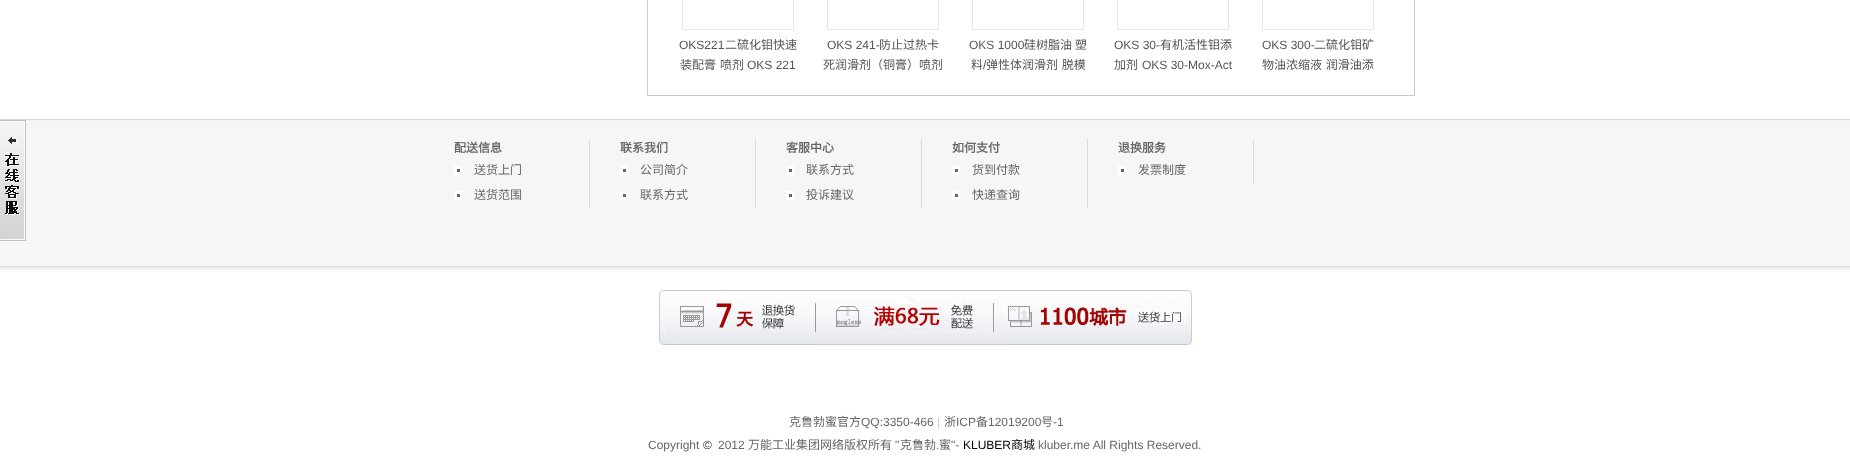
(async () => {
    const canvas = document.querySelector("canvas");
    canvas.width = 1850;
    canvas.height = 462;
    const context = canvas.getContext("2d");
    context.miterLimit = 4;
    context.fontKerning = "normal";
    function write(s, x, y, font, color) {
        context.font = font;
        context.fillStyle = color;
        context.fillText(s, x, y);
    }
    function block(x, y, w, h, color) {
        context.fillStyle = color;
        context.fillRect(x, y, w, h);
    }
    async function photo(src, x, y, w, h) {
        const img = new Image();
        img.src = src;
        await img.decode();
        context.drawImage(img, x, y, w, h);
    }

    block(0, 0, 1850, 462, "rgb(255, 255, 255)");
    block(1414, 0, 1, 96, "rgb(204, 204, 204)");
    block(647, 95, 768, 1, "rgb(204, 204, 204)");
    block(647, 0, 1, 96, "rgb(204, 204, 204)");
    context.strokeStyle = "rgb(230, 230, 230)";
    context.strokeRect(682.5, -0.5, 111, 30);
    write("OKS221", 679, 49, "12px Liberation Sans", "rgb(85, 85, 85)");
    write("二硫化钼快速", 725, 49, "12px Noto Sans CJK SC", "rgb(85, 85, 85)");
    write("装配膏", 680, 69, "12px Noto Sans CJK SC", "rgb(85, 85, 85)");
    write("喷剂", 720, 69, "12px Noto Sans CJK SC", "rgb(85, 85, 85)");
    write("OKS 221", 747, 69, "12px Liberation Sans", "rgb(85, 85, 85)");
    context.strokeRect(827.5, -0.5, 111, 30);
    write("OKS 241-", 827, 49, "12px Liberation Sans", "rgb(85, 85, 85)");
    write("防止过热卡", 879, 49, "12px Noto Sans CJK SC", "rgb(85, 85, 85)");
    write("死润滑剂（铜膏）喷剂", 823, 69, "12px Noto Sans CJK SC", "rgb(85, 85, 85)");
    context.strokeRect(972.5, -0.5, 111, 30);
    write("OKS 1000", 969, 49, "12px Liberation Sans", "rgb(85, 85, 85)");
    write("硅树脂油", 1024, 49, "12px Noto Sans CJK SC", "rgb(85, 85, 85)");
    write("塑", 1075, 49, "12px Noto Sans CJK SC", "rgb(85, 85, 85)");
    write("料", 971, 69, "12px Noto Sans CJK SC", "rgb(85, 85, 85)");
    write("/", 983, 69, "12px Liberation Sans", "rgb(85, 85, 85)");
    context.wordSpacing = "1px";
    write("弹性体润滑剂 脱模", 986, 69, "12px Noto Sans CJK SC", "rgb(85, 85, 85)");
    context.strokeRect(1117.5, -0.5, 111, 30);
    context.wordSpacing = "0px";
    write("OKS 30-", 1114, 49, "12px Liberation Sans", "rgb(85, 85, 85)");
    write("有机活性钼添", 1160, 49, "12px Noto Sans CJK SC", "rgb(85, 85, 85)");
    write("加剂", 1114, 69, "12px Noto Sans CJK SC", "rgb(85, 85, 85)");
    write("OKS 30-Mox-Act", 1142, 69, "12px Liberation Sans", "rgb(85, 85, 85)");
    context.strokeRect(1262.5, -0.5, 111, 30);
    write("OKS 300-", 1262, 49, "12px Liberation Sans", "rgb(85, 85, 85)");
    write("二硫化钼矿", 1314, 49, "12px Noto Sans CJK SC", "rgb(85, 85, 85)");
    context.wordSpacing = "1px";
    write("物油浓缩液 润滑油添", 1262, 69, "12px Noto Sans CJK SC", "rgb(85, 85, 85)");
    await photo("media/2.png", 0, 119, 1850, 151);
    await photo("media/1.png", 0, 120, 26, 121);
    block(589, 139, 1, 69, "rgb(219, 219, 219)");
    context.wordSpacing = "0px";
    write("配送信息", 454, 152, "bold 12px Noto Sans CJK SC", "rgb(102, 102, 102)");
    await photo("media/3.png", 454, 166, 8, 9);
    write("送货上门", 474, 174, "12px Noto Sans CJK SC", "rgb(102, 102, 102)");
    await photo("media/3.png", 454, 191, 8, 9);
    write("送货范围", 474, 199, "12px Noto Sans CJK SC", "rgb(102, 102, 102)");
    block(755, 139, 1, 69, "rgb(219, 219, 219)");
    write("联系我们", 620, 152, "bold 12px Noto Sans CJK SC", "rgb(102, 102, 102)");
    await photo("media/3.png", 620, 166, 8, 9);
    write("公司简介", 640, 174, "12px Noto Sans CJK SC", "rgb(102, 102, 102)");
    await photo("media/3.png", 620, 191, 8, 9);
    write("联系方式", 640, 199, "12px Noto Sans CJK SC", "rgb(102, 102, 102)");
    block(921, 139, 1, 69, "rgb(219, 219, 219)");
    write("客服中心", 786, 152, "bold 12px Noto Sans CJK SC", "rgb(102, 102, 102)");
    await photo("media/3.png", 786, 166, 8, 9);
    write("联系方式", 806, 174, "12px Noto Sans CJK SC", "rgb(102, 102, 102)");
    await photo("media/3.png", 786, 191, 8, 9);
    write("投诉建议", 806, 199, "12px Noto Sans CJK SC", "rgb(102, 102, 102)");
    block(1087, 139, 1, 69, "rgb(219, 219, 219)");
    write("如何支付", 952, 152, "bold 12px Noto Sans CJK SC", "rgb(102, 102, 102)");
    await photo("media/3.png", 952, 166, 8, 9);
    write("货到付款", 972, 174, "12px Noto Sans CJK SC", "rgb(102, 102, 102)");
    await photo("media/3.png", 952, 191, 8, 9);
    write("快递查询", 972, 199, "12px Noto Sans CJK SC", "rgb(102, 102, 102)");
    block(1253, 139, 1, 44, "rgb(219, 219, 219)");
    write("退换服务", 1118, 152, "bold 12px Noto Sans CJK SC", "rgb(102, 102, 102)");
    await photo("media/3.png", 1118, 166, 8, 9);
    write("发票制度", 1138, 174, "12px Noto Sans CJK SC", "rgb(102, 102, 102)");
    await photo("media/4.png", 659, 290, 533, 55);
    write("克鲁勃蜜官方", 789, 426, "12px Noto Sans CJK SC", "rgb(102, 102, 102)");
    write("QQ:3350-466", 861, 426, "12px Liberation Sans", "rgb(102, 102, 102)");
    write("|", 937, 426, "12px Liberation Sans", "rgb(204, 204, 204)");
    write("浙", 944, 426, "12px Noto Sans CJK SC", "rgb(102, 102, 102)");
    write("ICP", 956, 426, "12px Liberation Sans", "rgb(102, 102, 102)");
    write("备", 976, 426, "12px Noto Sans CJK SC", "rgb(102, 102, 102)");
    write("12019200", 988, 426, "12px Liberation Sans", "rgb(102, 102, 102)");
    write("号", 1041, 426, "12px Noto Sans CJK SC", "rgb(102, 102, 102)");
    write("-1", 1053, 426, "12px Liberation Sans", "rgb(102, 102, 102)");
    write("Copyright", 648, 449, "12px Liberation Sans", "rgb(102, 102, 102)");
    write("©", 703, 449, "12px Liberation Sans", "rgb(51, 51, 51)");
    write("2012", 718, 449, "12px Liberation Sans", "rgb(102, 102, 102)");
    write("万能工业集团网络版权所有", 748, 449, "12px Noto Sans CJK SC", "rgb(102, 102, 102)");
    write("\"", 895, 449, "12px Liberation Sans", "rgb(102, 102, 102)");
    write("克鲁勃", 900, 449, "12px Noto Sans CJK SC", "rgb(102, 102, 102)");
    write(".", 936, 449, "12px Liberation Sans", "rgb(102, 102, 102)");
    write("蜜", 939, 449, "12px Noto Sans CJK SC", "rgb(102, 102, 102)");
    write("\"-", 951, 449, "12px Liberation Sans", "rgb(102, 102, 102)");
    write("KLUBER", 963, 449, "12px Liberation Sans", "rgb(0, 0, 0)");
    write("商城", 1011, 449, "12px Noto Sans CJK SC", "rgb(0, 0, 0)");
    write("kluber.me All Rights Reserved.", 1038, 449, "12px Liberation Sans", "rgb(102, 102, 102)");
})();
